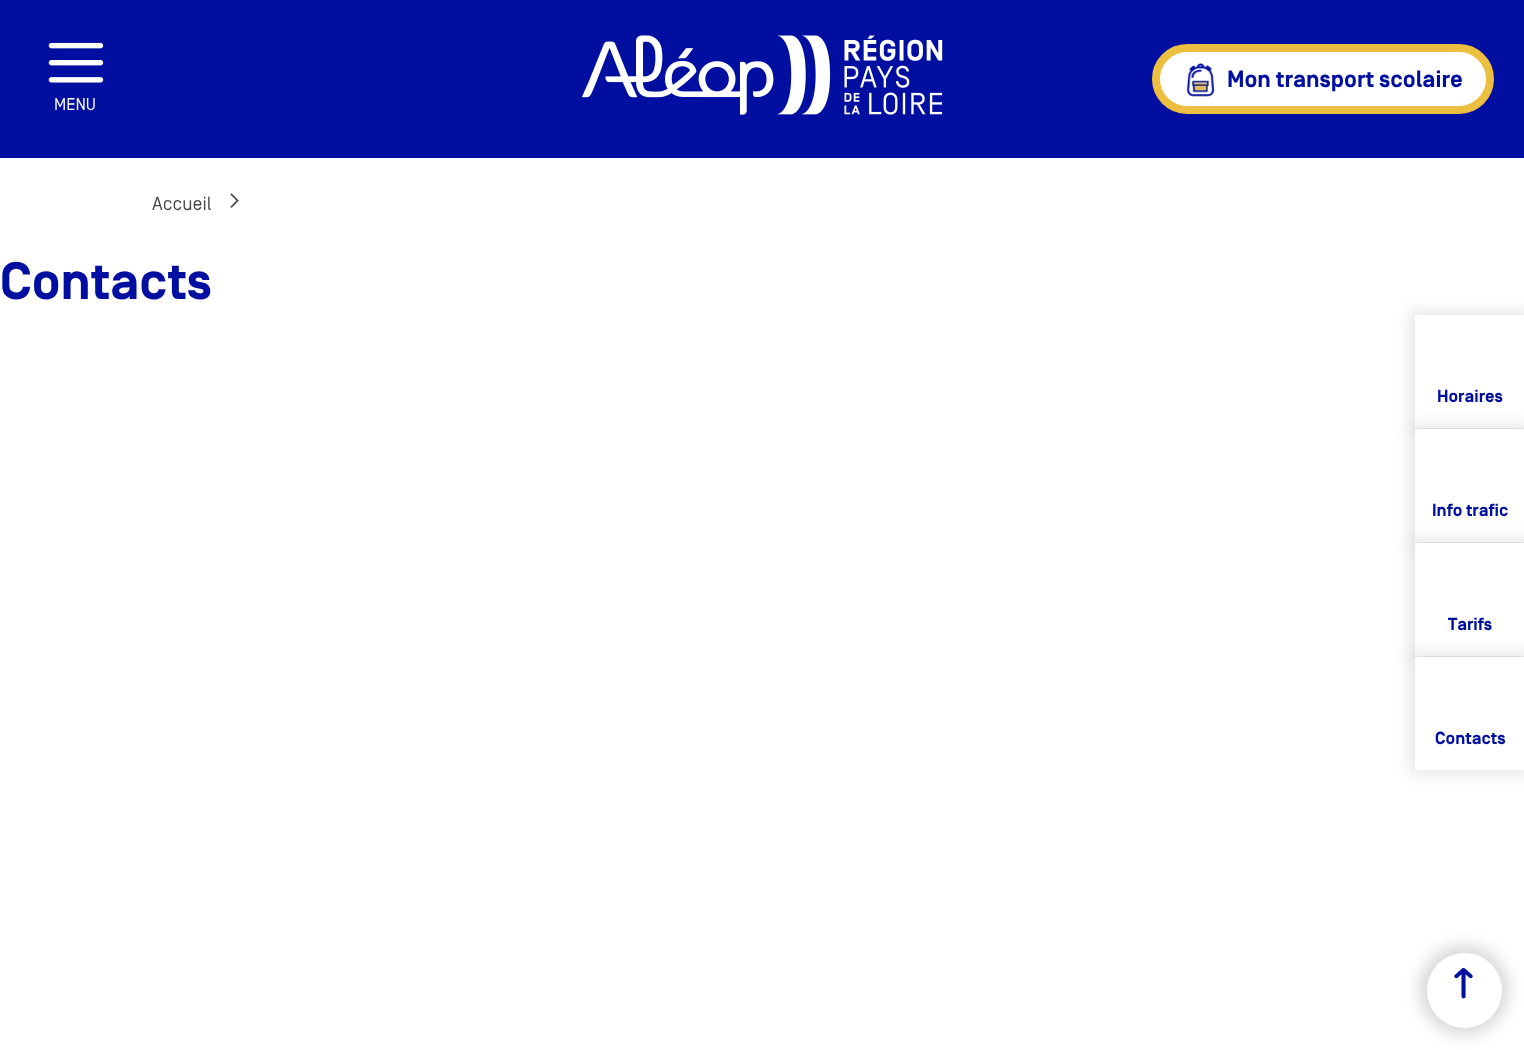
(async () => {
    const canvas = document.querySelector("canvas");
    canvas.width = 1524;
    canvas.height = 1050;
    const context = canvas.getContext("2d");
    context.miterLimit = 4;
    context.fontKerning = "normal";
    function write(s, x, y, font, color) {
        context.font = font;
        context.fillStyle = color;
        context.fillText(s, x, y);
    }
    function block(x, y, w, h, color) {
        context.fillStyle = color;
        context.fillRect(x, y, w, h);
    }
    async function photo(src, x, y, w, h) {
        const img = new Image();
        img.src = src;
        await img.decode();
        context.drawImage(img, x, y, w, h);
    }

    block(0, 0, 1524, 1050, "rgb(255, 255, 255)");
    block(0, 0, 1524, 158, "rgb(0, 15, 160)");
    await photo("media/1.png", 582, 35, 361, 80);
    context.fillStyle = "rgb(255, 255, 255)";
    context.beginPath();
    context.roundRect(1156, 48, 334, 62, 31);
    context.fill();
    context.strokeStyle = "rgb(236, 191, 64)";
    context.lineWidth = 8;
    context.stroke();
    await photo("media/2.png", 1186, 63, 29, 34);
    write("Mon transport scolaire", 1227, 87, "bold 23.5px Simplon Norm", "rgb(0, 15, 160)");
    await photo("media/3.png", 48, 42, 56, 41);
    write("MENU", 54, 110, "17px Simplon Norm", "rgb(255, 255, 255)");
    write("Accueil", 152, 210, "19px Simplon Norm", "rgb(74, 74, 74)");
    await photo("media/4.png", 230, 193, 9, 15);
    write("Contacts", 0, 299, "bold 52.5px Simplon Norm", "rgb(0, 15, 160)");
    context.fillStyle = "rgba(0, 0, 0, 0.1)";
    context.filter = "blur(7.5px)";
    context.beginPath();
    context.rect(1410, 311, 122, 121);
    context.fill();
    context.filter = "none";
    block(1415, 315, 109, 113, "rgb(255, 255, 255)");
    write("Horaires", 1437, 402, "bold 17.5px Simplon Norm", "rgb(0, 15, 160)");
    context.fillStyle = "rgba(0, 0, 0, 0.1)";
    context.filter = "blur(7.5px)";
    context.beginPath();
    context.rect(1410, 425, 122, 121);
    context.fill();
    context.filter = "none";
    block(1415, 429, 109, 113, "rgb(255, 255, 255)");
    write("Info trafic", 1432, 516, "bold 17.5px Simplon Norm", "rgb(0, 15, 160)");
    context.fillStyle = "rgba(0, 0, 0, 0.1)";
    context.filter = "blur(7.5px)";
    context.beginPath();
    context.rect(1410, 539, 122, 121);
    context.fill();
    context.filter = "none";
    block(1415, 543, 109, 113, "rgb(255, 255, 255)");
    write("Tarifs", 1448, 630, "bold 17.5px Simplon Norm", "rgb(0, 15, 160)");
    context.fillStyle = "rgba(0, 0, 0, 0.1)";
    context.filter = "blur(7.5px)";
    context.beginPath();
    context.rect(1410, 653, 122, 121);
    context.fill();
    context.filter = "none";
    block(1415, 657, 109, 113, "rgb(255, 255, 255)");
    write("Contacts", 1435, 744, "bold 17.5px Simplon Norm", "rgb(0, 15, 160)");
    context.fillStyle = "rgba(0, 0, 0, 0.15)";
    context.filter = "blur(7.5px)";
    context.beginPath();
    context.roundRect(1419, 945, 90, 90, 45);
    context.fill();
    context.filter = "none";
    context.fillStyle = "rgb(255, 255, 255)";
    context.beginPath();
    context.arc(1464.5, 990.5, 37.5, 0, Math.PI * 2);
    context.fill();
    await photo("media/5.png", 1454, 968, 19, 31);
})();
